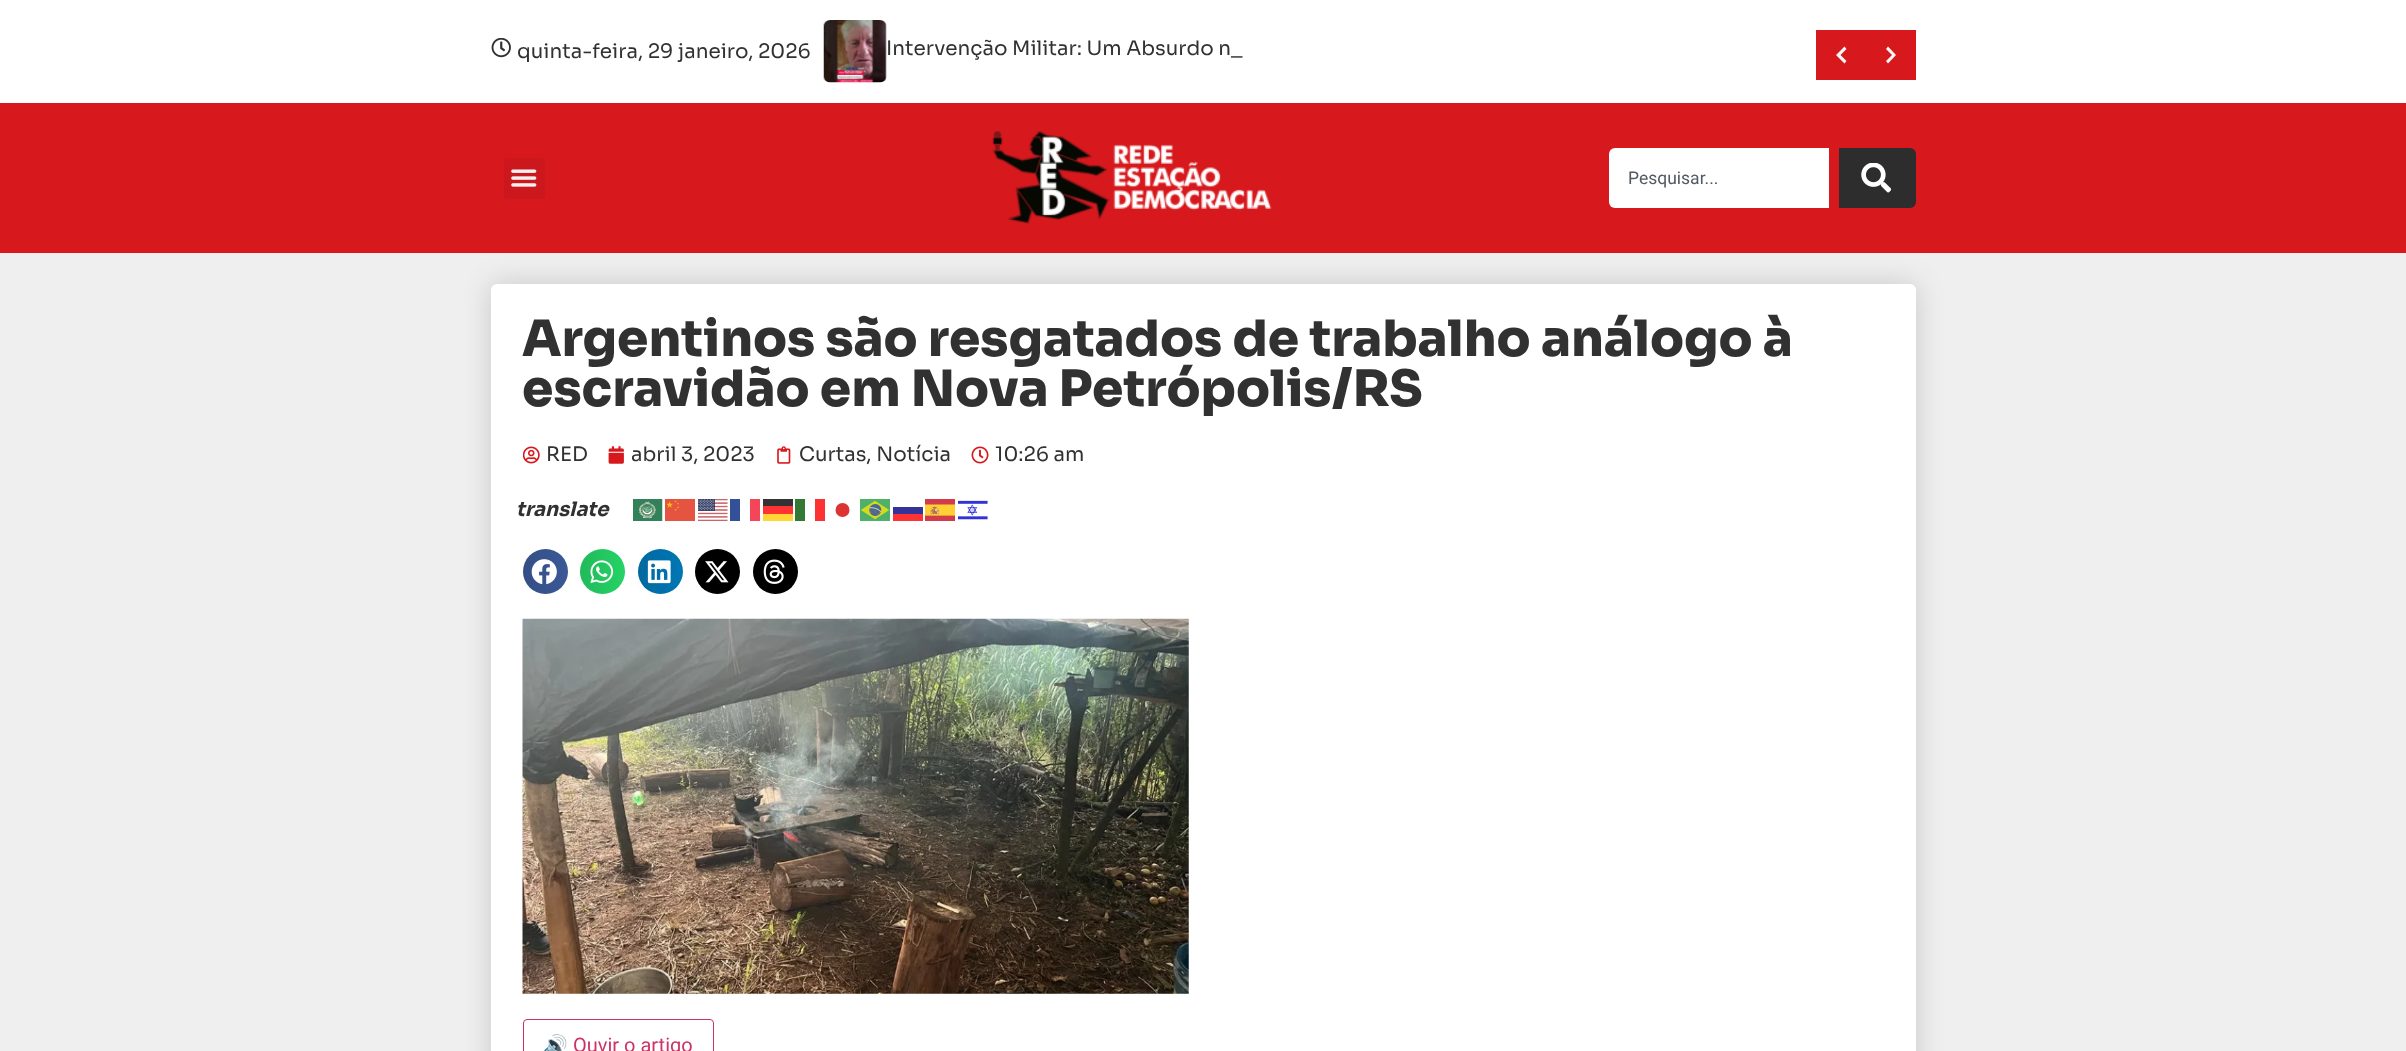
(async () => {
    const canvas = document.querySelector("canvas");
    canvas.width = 2406;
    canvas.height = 1051;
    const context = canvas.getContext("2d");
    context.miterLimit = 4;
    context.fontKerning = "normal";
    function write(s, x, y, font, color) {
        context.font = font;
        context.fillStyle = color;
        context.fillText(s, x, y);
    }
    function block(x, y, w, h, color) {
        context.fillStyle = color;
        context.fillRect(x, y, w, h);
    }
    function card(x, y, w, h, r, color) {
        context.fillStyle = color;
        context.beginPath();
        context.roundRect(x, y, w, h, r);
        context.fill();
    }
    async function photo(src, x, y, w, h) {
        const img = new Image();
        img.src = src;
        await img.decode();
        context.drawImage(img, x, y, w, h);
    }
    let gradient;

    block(0, 0, 2406, 1051, "rgb(255, 255, 255)");
    await photo("media/1.png", 491, 38, 20, 20);
    write("quinta-feira, 29 janeiro, 2026", 517, 58, "20px Sora", "rgb(49, 49, 49)");
    await photo("media/2.png", 823, 20, 64, 63);
    write("Intervenção Militar: Um Absurdo n_", 886, 55, "20px Sora", "rgb(49, 49, 49)");
    block(1816, 30, 100, 50, "rgb(215, 25, 30)");
    context.fillStyle = "rgb(246, 246, 246)";
    context.beginPath();
    context.moveTo(1844.5, 46.5);
    context.lineTo(1846.5, 49);
    context.lineTo(1840.5, 55);
    context.lineTo(1846.5, 61);
    context.lineTo(1844.5, 63.5);
    context.lineTo(1836, 55);
    context.closePath();
    context.moveTo(1888, 63.5);
    context.lineTo(1886, 61);
    context.lineTo(1892, 55);
    context.lineTo(1886, 49);
    context.lineTo(1888, 46.5);
    context.lineTo(1896, 55);
    context.closePath();
    context.fill();
    block(0, 253, 2406, 798, "rgb(239, 239, 239)");
    context.fillStyle = "rgba(0, 0, 0, 0.16)";
    context.filter = "blur(14px)";
    context.beginPath();
    context.roundRect(491, 284, 1425, 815, 6);
    context.fill();
    context.filter = "none";
    block(0, 103, 2406, 150, "rgb(215, 25, 30)");
    card(504, 158, 41, 41, 4, "rgb(204, 24, 29)");
    await photo("media/3.png", 511, 169, 26, 18);
    await photo("media/4.png", 992, 131, 280, 93);
    context.fillStyle = "rgb(255, 255, 255)";
    context.beginPath();
    context.roundRect(1609, 148, 220, 60, [6, 0, 0, 6]);
    context.fill();
    write("Pesquisar...", 1628, 184, "17.5px Roboto", "rgb(81, 89, 98)");
    context.fillStyle = "rgb(45, 45, 45)";
    context.beginPath();
    context.roundRect(1839, 148, 77, 60, [0, 6, 6, 0]);
    context.fill();
    await photo("media/5.png", 1861, 163, 30, 30);
    card(491, 284, 1425, 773, 6, "rgb(255, 255, 255)");
    write("Argentinos são resgatados de trabalho análogo à", 522, 356, "800 50px Sora", "rgb(49, 49, 49)");
    write("escravidão em Nova Petrópolis/RS", 522, 406, "800 50px Sora", "rgb(49, 49, 49)");
    await photo("media/6.png", 523, 446, 17, 18);
    write("RED", 546, 461, "20px Sora", "rgb(49, 49, 49)");
    await photo("media/7.png", 608, 446, 16, 18);
    write("abril 3, 2023", 631, 461, "20px Sora", "rgb(49, 49, 49)");
    await photo("media/8.png", 777, 446, 14, 18);
    write("Curtas, Notícia", 799, 461, "20px Sora", "rgb(49, 49, 49)");
    await photo("media/9.png", 971, 446, 18, 18);
    write("10:26 am", 995, 461, "20px Sora", "rgb(49, 49, 49)");
    write("translate", 516, 516, "italic bold 20px Sora", "rgb(49, 49, 49)");
    await photo("media/10.png", 633, 499, 30, 22);
    await photo("media/11.png", 665, 499, 30, 22);
    await photo("media/12.png", 698, 499, 30, 22);
    block(730, 499, 10, 22, "rgb(51, 81, 153)");
    block(750, 499, 10, 22, "rgb(245, 70, 89)");
    block(763, 499, 30, 7, "rgb(51, 51, 51)");
    block(795, 499, 10, 22, "rgb(51, 121, 51)");
    block(815, 499, 10, 22, "rgb(253, 51, 51)");
    context.fillStyle = "rgb(220, 51, 51)";
    context.beginPath();
    context.arc(842.5, 510, 7, 0, Math.PI * 2);
    context.fill();
    await photo("media/13.png", 860, 499, 30, 22);
    await photo("media/14.png", 925, 499, 30, 22);
    await photo("media/15.png", 958, 500, 30, 20);
    block(763, 506, 30, 8, "rgb(255, 51, 51)");
    block(893, 507, 30, 7, "rgb(52, 52, 152)");
    block(763, 514, 30, 7, "rgb(255, 214, 51)");
    block(893, 514, 30, 7, "rgb(254, 52, 52)");
    context.fillStyle = "rgb(59, 89, 152)";
    context.beginPath();
    context.arc(545.5, 571.5, 22.5, 0, Math.PI * 2);
    context.fill();
    gradient = context.createLinearGradient(523, 571, 568, 571);
    gradient.addColorStop(0, "rgba(0, 0, 0, 0.12)");
    gradient.addColorStop(1, "rgba(0, 0, 0, 0)");
    context.fillStyle = gradient;
    context.beginPath();
    context.arc(545.5, 571.5, 22.5, 0, Math.PI * 2);
    context.fill();
    await photo("media/16.png", 531, 559, 26, 26);
    context.fillStyle = "rgb(37, 211, 102)";
    context.beginPath();
    context.arc(602.5, 571.5, 22.5, 0, Math.PI * 2);
    context.fill();
    gradient = context.createLinearGradient(580, 571, 625, 571);
    gradient.addColorStop(0, "rgba(0, 0, 0, 0.12)");
    gradient.addColorStop(1, "rgba(0, 0, 0, 0)");
    context.fillStyle = gradient;
    context.beginPath();
    context.arc(602.5, 571.5, 22.5, 0, Math.PI * 2);
    context.fill();
    await photo("media/17.png", 590, 560, 24, 24);
    context.fillStyle = "rgb(0, 119, 181)";
    context.beginPath();
    context.arc(660.5, 571.5, 22.5, 0, Math.PI * 2);
    context.fill();
    gradient = context.createLinearGradient(638, 571, 683, 571);
    gradient.addColorStop(0, "rgba(0, 0, 0, 0.12)");
    gradient.addColorStop(1, "rgba(0, 0, 0, 0)");
    context.fillStyle = gradient;
    context.beginPath();
    context.arc(660.5, 571.5, 22.5, 0, Math.PI * 2);
    context.fill();
    await photo("media/18.png", 647, 560, 24, 24);
    context.fillStyle = "rgb(0, 0, 0)";
    context.beginPath();
    context.arc(717.5, 571.5, 22.5, 0, Math.PI * 2);
    context.fill();
    gradient = context.createLinearGradient(695, 571, 740, 571);
    gradient.addColorStop(0, "rgba(0, 0, 0, 0.12)");
    gradient.addColorStop(1, "rgba(0, 0, 0, 0)");
    context.fillStyle = gradient;
    context.beginPath();
    context.arc(717.5, 571.5, 22.5, 0, Math.PI * 2);
    context.fill();
    await photo("media/19.png", 705, 561, 24, 22);
    context.fillStyle = "rgb(0, 0, 0)";
    context.beginPath();
    context.arc(775.5, 571.5, 22.5, 0, Math.PI * 2);
    context.fill();
    gradient = context.createLinearGradient(753, 571, 798, 571);
    gradient.addColorStop(0, "rgba(0, 0, 0, 0.12)");
    gradient.addColorStop(1, "rgba(0, 0, 0, 0)");
    context.fillStyle = gradient;
    context.beginPath();
    context.arc(775.5, 571.5, 22.5, 0, Math.PI * 2);
    context.fill();
    await photo("media/20.png", 763, 559, 22, 25);
    await photo("media/21.png", 522, 618, 667, 376);
    context.beginPath();
    context.roundRect(523.5, 1019.5, 190, 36, 3.5);
    context.strokeStyle = "rgb(204, 51, 102)";
    context.stroke();
    write("🔊", 543, 1052, "20px Noto Color Emoji", "rgb(204, 51, 102)");
    write("Ouvir o artigo", 573, 1052, "20px Roboto", "rgb(204, 51, 102)");
})();
